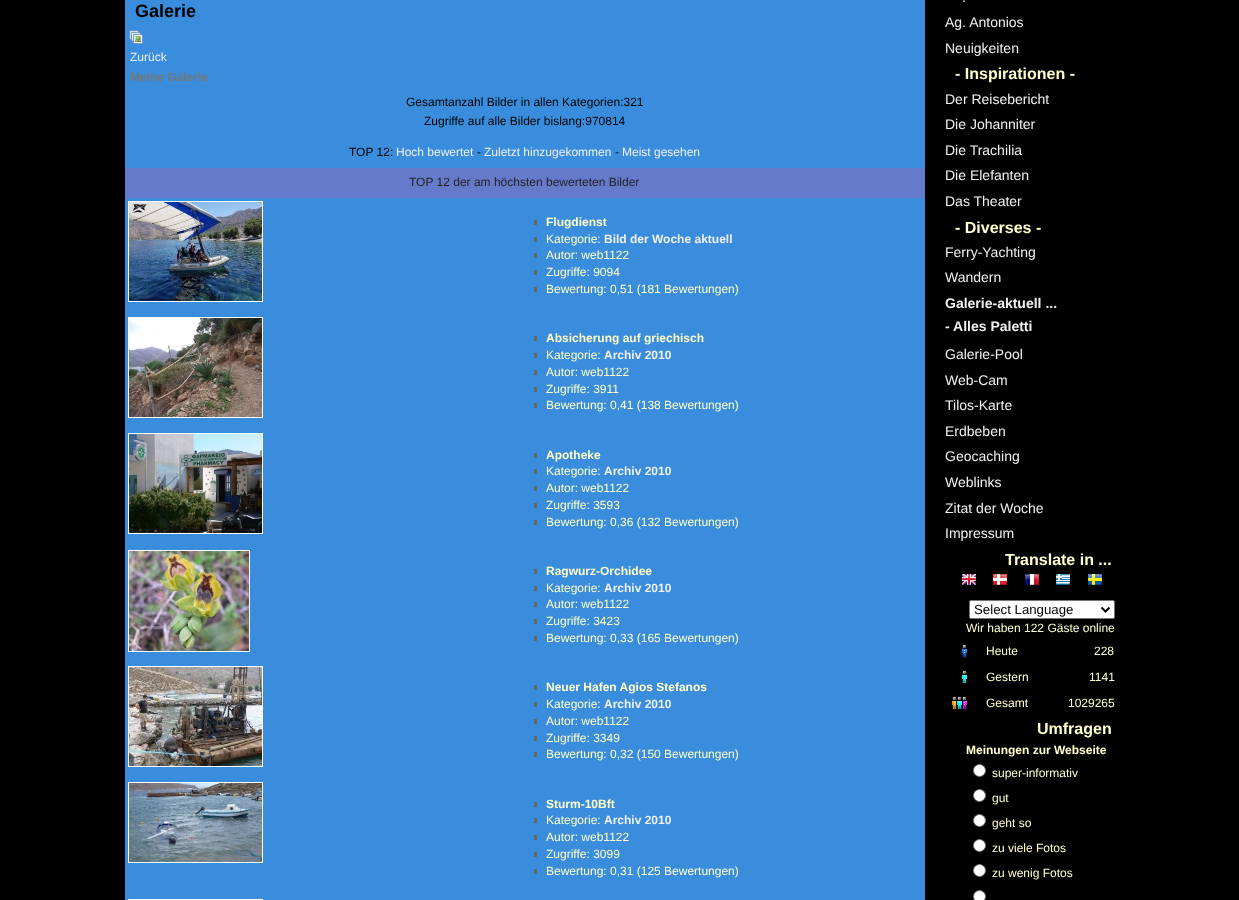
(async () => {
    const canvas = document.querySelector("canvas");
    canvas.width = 1239;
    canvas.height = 900;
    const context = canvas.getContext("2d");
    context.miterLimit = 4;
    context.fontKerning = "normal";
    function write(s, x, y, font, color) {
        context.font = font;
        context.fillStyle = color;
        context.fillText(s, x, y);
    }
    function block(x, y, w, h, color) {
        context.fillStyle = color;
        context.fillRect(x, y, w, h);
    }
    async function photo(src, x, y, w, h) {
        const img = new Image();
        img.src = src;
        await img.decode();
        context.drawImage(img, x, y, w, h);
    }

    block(0, 0, 1239, 900, "rgb(0, 0, 0)");
    block(125, 0, 800, 900, "rgb(57, 141, 220)");
    write("Galerie", 135, 17, "bold 18px Liberation Sans", "rgb(0, 0, 0)");
    await photo("media/1.png", 129, 30, 14, 14);
    write("Zurück", 130, 61, "12px Liberation Sans", "rgb(240, 240, 240)");
    write("Meine Galerie", 130, 81, "bold 12px Liberation Sans", "rgb(119, 119, 119)");
    write("Gesamtanzahl Bilder in allen Kategorien:321", 406, 106, "12px Liberation Sans", "rgb(0, 0, 0)");
    write("Zugriffe auf alle Bilder bislang:970814", 424, 125, "12px Liberation Sans", "rgb(0, 0, 0)");
    write("TOP 12:", 349, 156, "12px Liberation Sans", "rgb(0, 0, 0)");
    write("Hoch bewertet", 396, 156, "12px Liberation Sans", "rgb(240, 240, 240)");
    write("-", 477, 156, "12px Liberation Sans", "rgb(0, 0, 0)");
    write("Zuletzt hinzugekommen", 484, 156, "12px Liberation Sans", "rgb(240, 240, 240)");
    write("-", 615, 156, "12px Liberation Sans", "rgb(0, 0, 0)");
    write("Meist gesehen", 622, 156, "12px Liberation Sans", "rgb(240, 240, 240)");
    block(125, 168, 800, 30, "rgb(102, 122, 204)");
    write("TOP 12 der am höchsten bewerteten Bilder", 409, 186, "12px Liberation Sans", "rgb(34, 34, 34)");
    block(128, 201, 135, 101, "rgb(255, 255, 255)");
    await photo("media/2.png", 129, 202, 133, 99);
    block(534, 220, 3, 5, "rgb(102, 102, 102)");
    write("Flugdienst", 546, 226, "bold 12px Liberation Sans", "rgb(255, 255, 204)");
    block(534, 237, 3, 5, "rgb(102, 102, 102)");
    write("Kategorie:", 546, 243, "12px Liberation Sans", "rgb(255, 255, 204)");
    write("Bild der Woche aktuell", 604, 243, "bold 12px Liberation Sans", "rgb(240, 240, 240)");
    block(534, 253, 3, 5, "rgb(102, 102, 102)");
    write("Autor: web1122", 546, 259, "12px Liberation Sans", "rgb(255, 255, 204)");
    block(534, 270, 3, 5, "rgb(102, 102, 102)");
    write("Zugriffe: 9094", 546, 276, "12px Liberation Sans", "rgb(255, 255, 204)");
    block(534, 287, 3, 5, "rgb(102, 102, 102)");
    write("Bewertung: 0,51 (181 Bewertungen)", 546, 293, "12px Liberation Sans", "rgb(255, 255, 204)");
    block(128, 317, 135, 101, "rgb(255, 255, 255)");
    await photo("media/3.png", 129, 318, 133, 99);
    block(534, 336, 3, 5, "rgb(102, 102, 102)");
    write("Absicherung auf griechisch", 546, 342, "bold 12px Liberation Sans", "rgb(255, 255, 204)");
    block(534, 353, 3, 5, "rgb(102, 102, 102)");
    write("Kategorie:", 546, 359, "12px Liberation Sans", "rgb(255, 255, 204)");
    write("Archiv 2010", 604, 359, "bold 12px Liberation Sans", "rgb(240, 240, 240)");
    block(534, 370, 3, 5, "rgb(102, 102, 102)");
    write("Autor: web1122", 546, 376, "12px Liberation Sans", "rgb(255, 255, 204)");
    block(534, 387, 3, 5, "rgb(102, 102, 102)");
    write("Zugriffe: 3911", 546, 393, "12px Liberation Sans", "rgb(255, 255, 204)");
    block(534, 403, 3, 5, "rgb(102, 102, 102)");
    write("Bewertung: 0,41 (138 Bewertungen)", 546, 409, "12px Liberation Sans", "rgb(255, 255, 204)");
    block(128, 433, 135, 101, "rgb(255, 255, 255)");
    await photo("media/4.png", 129, 434, 133, 99);
    block(534, 453, 3, 5, "rgb(102, 102, 102)");
    write("Apotheke", 546, 459, "bold 12px Liberation Sans", "rgb(255, 255, 204)");
    block(534, 469, 3, 5, "rgb(102, 102, 102)");
    write("Kategorie:", 546, 475, "12px Liberation Sans", "rgb(255, 255, 204)");
    write("Archiv 2010", 604, 475, "bold 12px Liberation Sans", "rgb(240, 240, 240)");
    block(534, 486, 3, 5, "rgb(102, 102, 102)");
    write("Autor: web1122", 546, 492, "12px Liberation Sans", "rgb(255, 255, 204)");
    block(534, 503, 3, 5, "rgb(102, 102, 102)");
    write("Zugriffe: 3593", 546, 509, "12px Liberation Sans", "rgb(255, 255, 204)");
    block(534, 520, 3, 5, "rgb(102, 102, 102)");
    write("Bewertung: 0,36 (132 Bewertungen)", 546, 526, "12px Liberation Sans", "rgb(255, 255, 204)");
    block(128, 550, 122, 102, "rgb(255, 255, 255)");
    await photo("media/5.png", 129, 551, 120, 100);
    block(534, 569, 3, 5, "rgb(102, 102, 102)");
    write("Ragwurz-Orchidee", 546, 575, "bold 12px Liberation Sans", "rgb(255, 255, 204)");
    block(534, 586, 3, 5, "rgb(102, 102, 102)");
    write("Kategorie:", 546, 592, "12px Liberation Sans", "rgb(255, 255, 204)");
    write("Archiv 2010", 604, 592, "bold 12px Liberation Sans", "rgb(240, 240, 240)");
    block(534, 602, 3, 5, "rgb(102, 102, 102)");
    write("Autor: web1122", 546, 608, "12px Liberation Sans", "rgb(255, 255, 204)");
    block(534, 619, 3, 5, "rgb(102, 102, 102)");
    write("Zugriffe: 3423", 546, 625, "12px Liberation Sans", "rgb(255, 255, 204)");
    block(534, 636, 3, 5, "rgb(102, 102, 102)");
    write("Bewertung: 0,33 (165 Bewertungen)", 546, 642, "12px Liberation Sans", "rgb(255, 255, 204)");
    block(128, 666, 135, 101, "rgb(255, 255, 255)");
    await photo("media/6.png", 129, 667, 133, 99);
    block(534, 685, 3, 5, "rgb(102, 102, 102)");
    write("Neuer Hafen Agios Stefanos", 546, 691, "bold 12px Liberation Sans", "rgb(255, 255, 204)");
    block(534, 702, 3, 5, "rgb(102, 102, 102)");
    write("Kategorie:", 546, 708, "12px Liberation Sans", "rgb(255, 255, 204)");
    write("Archiv 2010", 604, 708, "bold 12px Liberation Sans", "rgb(240, 240, 240)");
    block(534, 719, 3, 5, "rgb(102, 102, 102)");
    write("Autor: web1122", 546, 725, "12px Liberation Sans", "rgb(255, 255, 204)");
    block(534, 736, 3, 5, "rgb(102, 102, 102)");
    write("Zugriffe: 3349", 546, 742, "12px Liberation Sans", "rgb(255, 255, 204)");
    block(534, 752, 3, 5, "rgb(102, 102, 102)");
    write("Bewertung: 0,32 (150 Bewertungen)", 546, 758, "12px Liberation Sans", "rgb(255, 255, 204)");
    block(128, 782, 135, 81, "rgb(255, 255, 255)");
    await photo("media/7.png", 129, 783, 133, 79);
    block(534, 802, 3, 5, "rgb(102, 102, 102)");
    write("Sturm-10Bft", 546, 808, "bold 12px Liberation Sans", "rgb(255, 255, 204)");
    block(534, 818, 3, 5, "rgb(102, 102, 102)");
    write("Kategorie:", 546, 824, "12px Liberation Sans", "rgb(255, 255, 204)");
    write("Archiv 2010", 604, 824, "bold 12px Liberation Sans", "rgb(240, 240, 240)");
    block(534, 835, 3, 5, "rgb(102, 102, 102)");
    write("Autor: web1122", 546, 841, "12px Liberation Sans", "rgb(255, 255, 204)");
    block(534, 852, 3, 5, "rgb(102, 102, 102)");
    write("Zugriffe: 3099", 546, 858, "12px Liberation Sans", "rgb(255, 255, 204)");
    block(534, 869, 3, 5, "rgb(102, 102, 102)");
    write("Bewertung: 0,31 (125 Bewertungen)", 546, 875, "12px Liberation Sans", "rgb(255, 255, 204)");
    block(128, 899, 135, 1, "rgb(255, 255, 255)");
    write(".", 962, 2, "14px Liberation Sans", "rgb(240, 240, 240)");
    write("Ag. Antonios", 945, 27, "14px Liberation Sans", "rgb(240, 240, 240)");
    write("Neuigkeiten", 945, 53, "14px Liberation Sans", "rgb(240, 240, 240)");
    write("- Inspirationen -", 955, 79, "bold 16px Liberation Sans", "rgb(255, 255, 204)");
    write("Der Reisebericht", 945, 104, "14px Liberation Sans", "rgb(240, 240, 240)");
    write("Die Johanniter", 945, 129, "14px Liberation Sans", "rgb(240, 240, 240)");
    write("Die Trachilia", 945, 155, "14px Liberation Sans", "rgb(240, 240, 240)");
    write("Die Elefanten", 945, 180, "14px Liberation Sans", "rgb(240, 240, 240)");
    write("Das Theater", 945, 206, "14px Liberation Sans", "rgb(240, 240, 240)");
    write("- Diverses -", 955, 233, "bold 16px Liberation Sans", "rgb(255, 255, 204)");
    write("Ferry-Yachting", 945, 257, "14px Liberation Sans", "rgb(240, 240, 240)");
    write("Wandern", 945, 282, "14px Liberation Sans", "rgb(240, 240, 240)");
    write("Galerie-aktuell ...", 945, 308, "bold 14px Liberation Sans", "rgb(240, 240, 240)");
    write("- Alles Paletti", 945, 331, "bold 14px Liberation Sans", "rgb(240, 240, 240)");
    write("Galerie-Pool", 945, 359, "14px Liberation Sans", "rgb(240, 240, 240)");
    write("Web-Cam", 945, 385, "14px Liberation Sans", "rgb(240, 240, 240)");
    write("Tilos-Karte", 945, 410, "14px Liberation Sans", "rgb(240, 240, 240)");
    write("Erdbeben", 945, 436, "14px Liberation Sans", "rgb(240, 240, 240)");
    write("Geocaching", 945, 461, "14px Liberation Sans", "rgb(240, 240, 240)");
    write("Weblinks", 945, 487, "14px Liberation Sans", "rgb(240, 240, 240)");
    write("Zitat der Woche", 945, 513, "14px Liberation Sans", "rgb(240, 240, 240)");
    write("Impressum", 945, 538, "14px Liberation Sans", "rgb(240, 240, 240)");
    write("Translate in ...", 1005, 565, "bold 16px Liberation Sans", "rgb(255, 255, 204)");
    await photo("media/8.png", 962, 574, 14, 11);
    await photo("media/9.png", 993, 574, 14, 11);
    await photo("media/10.png", 1025, 574, 14, 11);
    await photo("media/11.png", 1056, 574, 14, 11);
    await photo("media/12.png", 1088, 574, 14, 11);
    context.fillStyle = "rgb(255, 255, 255)";
    context.beginPath();
    context.roundRect(969.5, 600.5, 145, 18, 1.5);
    context.fill();
    context.strokeStyle = "rgb(118, 118, 118)";
    context.stroke();
    context.beginPath();
    context.moveTo(1101.5, 607.5);
    context.lineTo(1105.5, 611.5);
    context.lineTo(1109.5, 607.5);
    context.strokeStyle = "rgb(0, 0, 0)";
    context.lineWidth = 2;
    context.stroke();
    write("Select Language", 974, 614, "13.25px Liberation Sans", "rgb(0, 0, 0)");
    write("Wir haben 122 Gäste online", 966, 632, "12px Liberation Sans", "rgb(255, 255, 204)");
    await photo("media/13.png", 961, 644, 7, 14);
    write("Heute", 986, 655, "12px Liberation Sans", "rgb(255, 255, 204)");
    write("228", 1094, 655, "12px Liberation Sans", "rgb(255, 255, 204)");
    await photo("media/14.png", 961, 670, 7, 14);
    write("Gestern", 986, 681, "12px Liberation Sans", "rgb(255, 255, 204)");
    write("1141", 1089, 681, "12px Liberation Sans", "rgb(255, 255, 204)");
    await photo("media/15.png", 951, 696, 17, 14);
    write("Gesamt", 986, 707, "12px Liberation Sans", "rgb(255, 255, 204)");
    write("1029265", 1068, 707, "12px Liberation Sans", "rgb(255, 255, 204)");
    write("Umfragen", 1037, 734, "bold 16px Liberation Sans", "rgb(255, 255, 204)");
    write("Meinungen zur Webseite", 966, 754, "bold 12px Liberation Sans", "rgb(255, 255, 204)");
    context.fillStyle = "rgb(255, 255, 255)";
    context.beginPath();
    context.arc(979.5, 770.5, 6, 0, Math.PI * 2);
    context.fill();
    context.strokeStyle = "rgb(118, 118, 118)";
    context.lineWidth = 1;
    context.stroke();
    write("super-informativ", 992, 777, "12px Liberation Sans", "rgb(255, 255, 204)");
    context.fillStyle = "rgb(255, 255, 255)";
    context.beginPath();
    context.arc(979.5, 795.5, 6, 0, Math.PI * 2);
    context.fill();
    context.stroke();
    write("gut", 992, 802, "12px Liberation Sans", "rgb(255, 255, 204)");
    context.fillStyle = "rgb(255, 255, 255)";
    context.beginPath();
    context.arc(979.5, 820.5, 6, 0, Math.PI * 2);
    context.fill();
    context.stroke();
    write("geht so", 992, 827, "12px Liberation Sans", "rgb(255, 255, 204)");
    context.fillStyle = "rgb(255, 255, 255)";
    context.beginPath();
    context.arc(979.5, 845.5, 6, 0, Math.PI * 2);
    context.fill();
    context.stroke();
    write("zu viele Fotos", 992, 852, "12px Liberation Sans", "rgb(255, 255, 204)");
    context.fillStyle = "rgb(255, 255, 255)";
    context.beginPath();
    context.arc(979.5, 870.5, 6, 0, Math.PI * 2);
    context.fill();
    context.stroke();
    write("zu wenig Fotos", 992, 877, "12px Liberation Sans", "rgb(255, 255, 204)");
    context.fillStyle = "rgb(255, 255, 255)";
    context.beginPath();
    context.arc(979.5, 896.5, 6, 0, Math.PI * 2);
    context.fill();
    context.stroke();
})();
